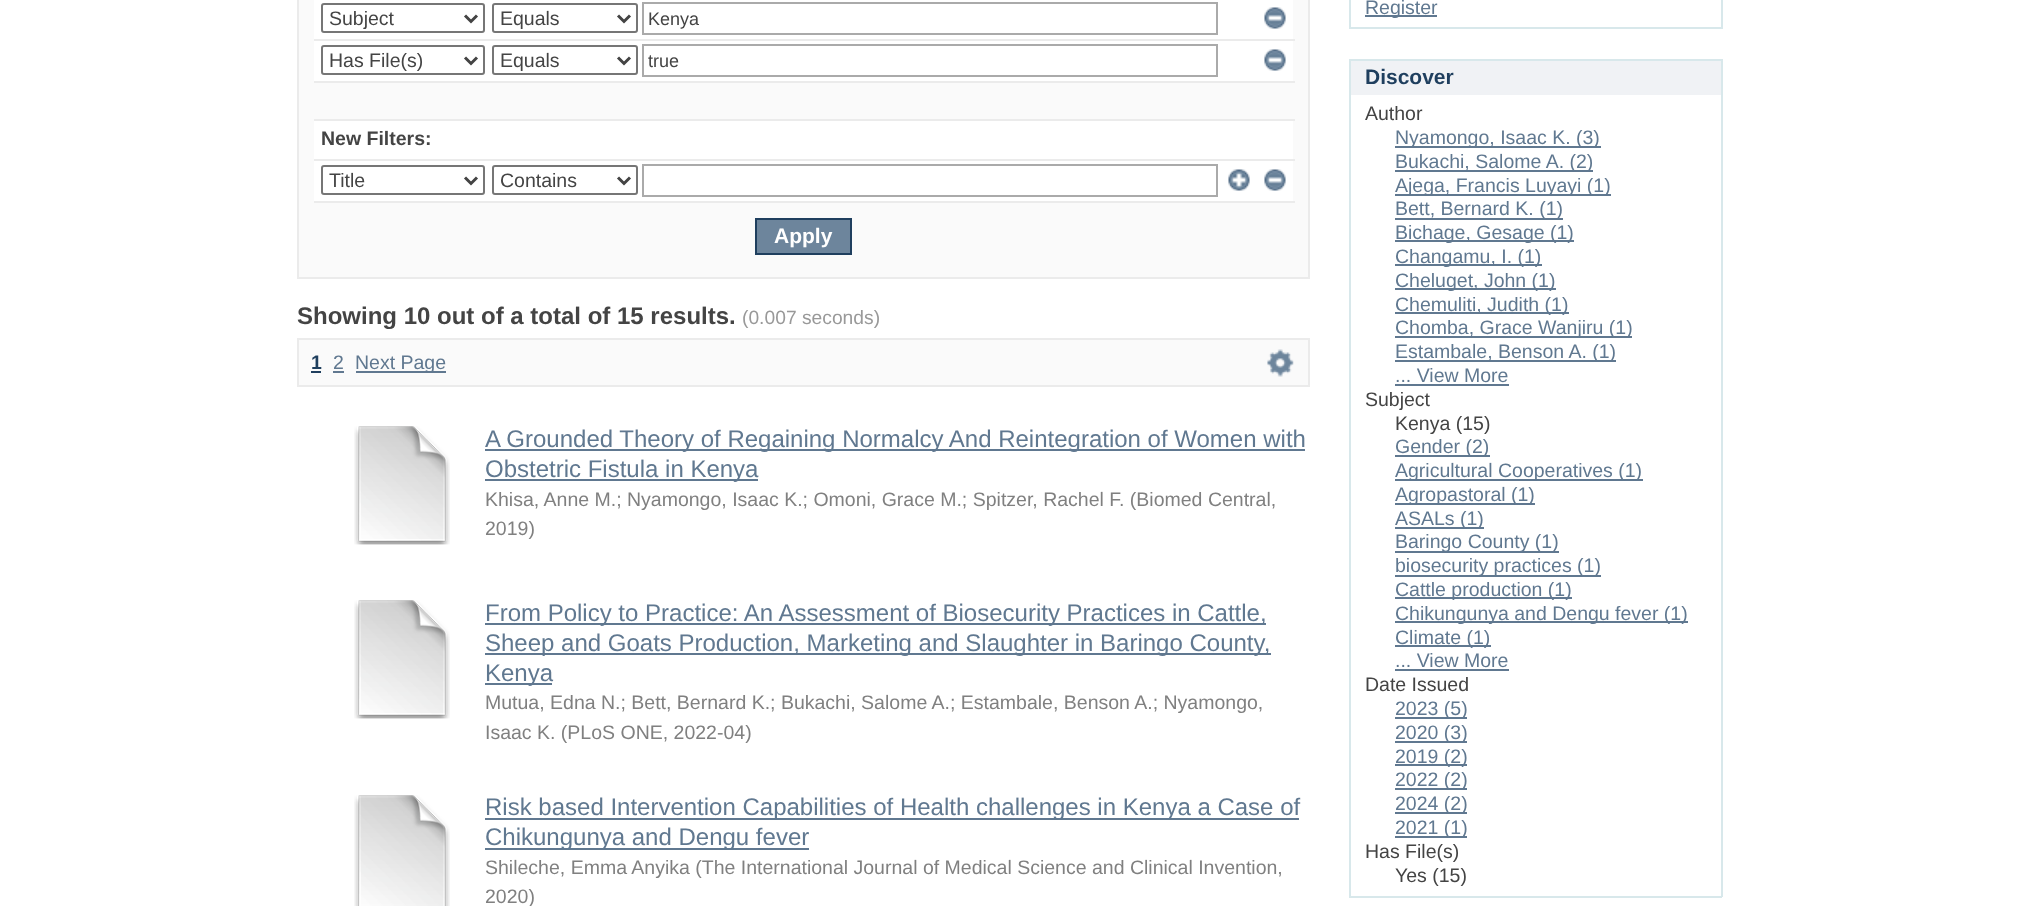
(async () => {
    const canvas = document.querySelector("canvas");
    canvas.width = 2018;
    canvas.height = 906;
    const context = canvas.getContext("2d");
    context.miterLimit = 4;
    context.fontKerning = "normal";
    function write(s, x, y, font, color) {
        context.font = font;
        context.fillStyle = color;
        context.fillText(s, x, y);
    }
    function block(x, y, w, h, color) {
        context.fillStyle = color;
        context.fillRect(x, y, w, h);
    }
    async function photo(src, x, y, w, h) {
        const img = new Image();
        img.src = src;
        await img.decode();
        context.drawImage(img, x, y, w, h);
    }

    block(0, 0, 2018, 906, "rgb(255, 255, 255)");
    context.fillStyle = "rgb(250, 250, 250)";
    context.beginPath();
    context.rect(298, -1, 1011, 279);
    context.fill();
    context.strokeStyle = "rgb(235, 235, 235)";
    context.lineWidth = 2;
    context.stroke();
    block(314, 0, 979, 201, "rgb(255, 255, 255)");
    context.beginPath();
    context.roundRect(322, 4, 162, 28, 2);
    context.strokeStyle = "rgb(118, 118, 118)";
    context.stroke();
    context.beginPath();
    context.moveTo(465, 15.5);
    context.lineTo(471, 21.5);
    context.lineTo(477, 15.5);
    context.strokeStyle = "rgb(68, 68, 68)";
    context.lineWidth = 3;
    context.stroke();
    write("Subject", 329, 25, "19.5px Liberation Sans", "rgb(68, 68, 68)");
    context.beginPath();
    context.roundRect(493, 4, 144, 28, 2);
    context.strokeStyle = "rgb(118, 118, 118)";
    context.lineWidth = 2;
    context.stroke();
    context.beginPath();
    context.moveTo(618, 15.5);
    context.lineTo(624, 21.5);
    context.lineTo(630, 15.5);
    context.strokeStyle = "rgb(68, 68, 68)";
    context.lineWidth = 3;
    context.stroke();
    write("Equals", 500, 25, "19.5px Liberation Sans", "rgb(68, 68, 68)");
    context.strokeStyle = "rgb(170, 170, 170)";
    context.lineWidth = 2;
    context.strokeRect(643, 3, 574, 31);
    write("Kenya", 648, 25, "18px Liberation Sans", "rgb(68, 68, 68)");
    await photo("media/1.png", 1264, 7, 22, 22);
    block(314, 39, 981, 2, "rgb(235, 235, 235)");
    context.beginPath();
    context.roundRect(322, 46, 162, 28, 2);
    context.strokeStyle = "rgb(118, 118, 118)";
    context.stroke();
    context.beginPath();
    context.moveTo(465, 57.5);
    context.lineTo(471, 63.5);
    context.lineTo(477, 57.5);
    context.strokeStyle = "rgb(68, 68, 68)";
    context.lineWidth = 3;
    context.stroke();
    write("Has File(s)", 329, 67, "19.5px Liberation Sans", "rgb(68, 68, 68)");
    context.beginPath();
    context.roundRect(493, 46, 144, 28, 2);
    context.strokeStyle = "rgb(118, 118, 118)";
    context.lineWidth = 2;
    context.stroke();
    context.beginPath();
    context.moveTo(618, 57.5);
    context.lineTo(624, 63.5);
    context.lineTo(630, 57.5);
    context.strokeStyle = "rgb(68, 68, 68)";
    context.lineWidth = 3;
    context.stroke();
    write("Equals", 500, 67, "19.5px Liberation Sans", "rgb(68, 68, 68)");
    context.strokeStyle = "rgb(170, 170, 170)";
    context.lineWidth = 2;
    context.strokeRect(643, 45, 574, 31);
    write("true", 648, 67, "18px Liberation Sans", "rgb(68, 68, 68)");
    await photo("media/1.png", 1264, 49, 22, 22);
    block(314, 83, 979, 36, "rgb(250, 250, 250)");
    block(314, 81, 981, 2, "rgb(235, 235, 235)");
    block(314, 119, 981, 2, "rgb(235, 235, 235)");
    write("New Filters:", 321, 145, "bold 19.5px Liberation Sans", "rgb(68, 68, 68)");
    block(314, 159, 981, 2, "rgb(235, 235, 235)");
    context.beginPath();
    context.roundRect(322, 166, 162, 28, 2);
    context.strokeStyle = "rgb(118, 118, 118)";
    context.stroke();
    context.beginPath();
    context.moveTo(465, 177.5);
    context.lineTo(471, 183.5);
    context.lineTo(477, 177.5);
    context.strokeStyle = "rgb(68, 68, 68)";
    context.lineWidth = 3;
    context.stroke();
    write("Title", 329, 187, "19.5px Liberation Sans", "rgb(68, 68, 68)");
    context.beginPath();
    context.roundRect(493, 166, 144, 28, 2);
    context.strokeStyle = "rgb(118, 118, 118)";
    context.lineWidth = 2;
    context.stroke();
    context.beginPath();
    context.moveTo(618, 177.5);
    context.lineTo(624, 183.5);
    context.lineTo(630, 177.5);
    context.strokeStyle = "rgb(68, 68, 68)";
    context.lineWidth = 3;
    context.stroke();
    write("Contains", 500, 187, "19.5px Liberation Sans", "rgb(68, 68, 68)");
    context.strokeStyle = "rgb(170, 170, 170)";
    context.lineWidth = 2;
    context.strokeRect(643, 165, 574, 31);
    await photo("media/2.png", 1228, 169, 22, 22);
    await photo("media/1.png", 1264, 169, 22, 22);
    block(314, 201, 981, 2, "rgb(235, 235, 235)");
    context.fillStyle = "rgb(109, 133, 156)";
    context.beginPath();
    context.rect(756, 219, 95, 35);
    context.fill();
    context.strokeStyle = "rgb(31, 63, 94)";
    context.stroke();
    write("Apply", 774, 243, "bold 21px Liberation Sans", "rgb(255, 255, 255)");
    write("Showing 10 out of a total of 15 results.", 297, 324, "bold 24px Liberation Sans", "rgb(68, 68, 68)");
    write("(0.007 seconds)", 742, 324, "19.25px Liberation Sans", "rgb(153, 153, 153)");
    context.fillStyle = "rgb(250, 250, 250)";
    context.beginPath();
    context.rect(298, 339, 1011, 47);
    context.fill();
    context.strokeStyle = "rgb(235, 235, 235)";
    context.stroke();
    write("1", 311, 369, "bold 19.5px Liberation Sans", "rgb(31, 63, 94)");
    block(311, 371, 10, 2, "rgb(31, 63, 94)");
    write("2", 333, 369, "19.5px Liberation Sans", "rgb(96, 120, 144)");
    block(333, 371, 11, 2, "rgb(96, 120, 144)");
    block(356, 371, 90, 2, "rgb(96, 120, 144)");
    write("Next Page", 355, 369, "19.5px Liberation Sans", "rgb(96, 120, 144)");
    await photo("media/3.png", 1267, 349, 27, 28);
    await photo("media/4.png", 354, 426, 96, 119);
    block(485, 449, 820, 2, "rgb(96, 120, 144)");
    write("A Grounded Theory of Regaining Normalcy And Reintegration of Women with", 485, 447, "24px Liberation Sans", "rgb(96, 120, 144)");
    block(485, 479, 273, 2, "rgb(96, 120, 144)");
    write("Obstetric Fistula in Kenya", 485, 477, "24px Liberation Sans", "rgb(96, 120, 144)");
    write("Khisa, Anne M.; Nyamongo, Isaac K.; Omoni, Grace M.; Spitzer, Rachel F. (Biomed Central,", 485, 506, "19.5px Liberation Sans", "rgb(128, 128, 128)");
    write("2019)", 485, 535, "19.5px Liberation Sans", "rgb(128, 128, 128)");
    await photo("media/4.png", 354, 600, 96, 119);
    block(485, 623, 781, 2, "rgb(96, 120, 144)");
    write("From Policy to Practice: An Assessment of Biosecurity Practices in Cattle,", 485, 621, "24px Liberation Sans", "rgb(96, 120, 144)");
    block(485, 653, 786, 2, "rgb(96, 120, 144)");
    write("Sheep and Goats Production, Marketing and Slaughter in Baringo County,", 485, 651, "24px Liberation Sans", "rgb(96, 120, 144)");
    block(485, 683, 67, 2, "rgb(96, 120, 144)");
    write("Kenya", 485, 681, "24px Liberation Sans", "rgb(96, 120, 144)");
    write("Mutua, Edna N.; Bett, Bernard K.; Bukachi, Salome A.; Estambale, Benson A.; Nyamongo,", 485, 709, "19.5px Liberation Sans", "rgb(128, 128, 128)");
    write("Isaac K. (PLoS ONE, 2022-04)", 485, 739, "19.5px Liberation Sans", "rgb(128, 128, 128)");
    await photo("media/5.png", 354, 795, 96, 111);
    block(485, 818, 814, 2, "rgb(96, 120, 144)");
    write("Risk based Intervention Capabilities of Health challenges in Kenya a Case of", 485, 815, "24px Liberation Sans", "rgb(96, 120, 144)");
    block(485, 848, 324, 2, "rgb(96, 120, 144)");
    write("Chikungunya and Dengu fever", 485, 845, "24px Liberation Sans", "rgb(96, 120, 144)");
    write("Shileche, Emma Anyika (The International Journal of Medical Science and Clinical Invention,", 485, 874, "19.5px Liberation Sans", "rgb(128, 128, 128)");
    write("2020)", 485, 903, "19.5px Liberation Sans", "rgb(128, 128, 128)");
    block(1721, 0, 2, 29, "rgb(216, 232, 235)");
    block(1349, 27, 373, 2, "rgb(216, 232, 235)");
    block(1349, 0, 2, 29, "rgb(216, 232, 235)");
    block(1365, 15, 72, 2, "rgb(96, 120, 144)");
    write("Register", 1365, 14, "19.5px Liberation Sans", "rgb(96, 120, 144)");
    block(1351, 61, 370, 34, "rgb(240, 242, 245)");
    block(1349, 59, 373, 2, "rgb(216, 232, 235)");
    block(1721, 59, 2, 838, "rgb(216, 232, 235)");
    block(1349, 59, 2, 36, "rgb(216, 232, 235)");
    write("Discover", 1365, 84, "bold 21px Liberation Sans", "rgb(31, 63, 94)");
    block(1349, 896, 373, 2, "rgb(216, 232, 235)");
    block(1349, 95, 2, 802, "rgb(216, 232, 235)");
    write("Author", 1365, 120, "19.5px Liberation Sans", "rgb(68, 68, 68)");
    block(1395, 146, 206, 2, "rgb(96, 120, 144)");
    write("Nyamongo, Isaac K. (3)", 1395, 144, "19.5px Liberation Sans", "rgb(96, 120, 144)");
    block(1395, 170, 198, 2, "rgb(96, 120, 144)");
    write("Bukachi, Salome A. (2)", 1395, 168, "19.5px Liberation Sans", "rgb(96, 120, 144)");
    block(1395, 194, 216, 2, "rgb(96, 120, 144)");
    write("Ajega, Francis Luyayi (1)", 1395, 192, "19.5px Liberation Sans", "rgb(96, 120, 144)");
    block(1395, 218, 168, 2, "rgb(96, 120, 144)");
    write("Bett, Bernard K. (1)", 1395, 215, "19.5px Liberation Sans", "rgb(96, 120, 144)");
    block(1395, 240, 179, 2, "rgb(96, 120, 144)");
    write("Bichage, Gesage (1)", 1395, 239, "19.5px Liberation Sans", "rgb(96, 120, 144)");
    block(1395, 264, 147, 2, "rgb(96, 120, 144)");
    write("Changamu, I. (1)", 1395, 263, "19.5px Liberation Sans", "rgb(96, 120, 144)");
    block(1395, 288, 161, 2, "rgb(96, 120, 144)");
    write("Cheluget, John (1)", 1395, 287, "19.5px Liberation Sans", "rgb(96, 120, 144)");
    block(1395, 312, 174, 2, "rgb(96, 120, 144)");
    write("Chemuliti, Judith (1)", 1395, 311, "19.5px Liberation Sans", "rgb(96, 120, 144)");
    block(1395, 336, 237, 2, "rgb(96, 120, 144)");
    write("Chomba, Grace Wanjiru (1)", 1395, 334, "19.5px Liberation Sans", "rgb(96, 120, 144)");
    block(1395, 360, 221, 2, "rgb(96, 120, 144)");
    write("Estambale, Benson A. (1)", 1395, 358, "19.5px Liberation Sans", "rgb(96, 120, 144)");
    write("... View More", 1395, 382, "19.5px Liberation Sans", "rgb(96, 120, 144)");
    block(1395, 384, 114, 2, "rgb(96, 120, 144)");
    write("Subject", 1365, 406, "19.5px Liberation Sans", "rgb(68, 68, 68)");
    write("Kenya (15)", 1395, 430, "19.5px Liberation Sans", "rgb(68, 68, 68)");
    block(1395, 455, 95, 2, "rgb(96, 120, 144)");
    write("Gender (2)", 1395, 453, "19.5px Liberation Sans", "rgb(96, 120, 144)");
    block(1395, 479, 248, 2, "rgb(96, 120, 144)");
    write("Agricultural Cooperatives (1)", 1395, 477, "19.5px Liberation Sans", "rgb(96, 120, 144)");
    block(1395, 503, 140, 2, "rgb(96, 120, 144)");
    write("Agropastoral (1)", 1395, 501, "19.5px Liberation Sans", "rgb(96, 120, 144)");
    block(1395, 527, 89, 2, "rgb(96, 120, 144)");
    write("ASALs (1)", 1395, 525, "19.5px Liberation Sans", "rgb(96, 120, 144)");
    block(1395, 551, 164, 2, "rgb(96, 120, 144)");
    write("Baringo County (1)", 1395, 548, "19.5px Liberation Sans", "rgb(96, 120, 144)");
    block(1395, 575, 206, 2, "rgb(96, 120, 144)");
    write("biosecurity practices (1)", 1395, 572, "19.5px Liberation Sans", "rgb(96, 120, 144)");
    block(1395, 597, 177, 2, "rgb(96, 120, 144)");
    write("Cattle production (1)", 1395, 596, "19.5px Liberation Sans", "rgb(96, 120, 144)");
    block(1395, 621, 293, 2, "rgb(96, 120, 144)");
    write("Chikungunya and Dengu fever (1)", 1395, 620, "19.5px Liberation Sans", "rgb(96, 120, 144)");
    block(1395, 645, 96, 2, "rgb(96, 120, 144)");
    write("Climate (1)", 1395, 644, "19.5px Liberation Sans", "rgb(96, 120, 144)");
    write("... View More", 1395, 667, "19.5px Liberation Sans", "rgb(96, 120, 144)");
    block(1395, 669, 114, 2, "rgb(96, 120, 144)");
    write("Date Issued", 1365, 691, "19.5px Liberation Sans", "rgb(68, 68, 68)");
    block(1395, 717, 72, 2, "rgb(96, 120, 144)");
    write("2023 (5)", 1395, 715, "19.5px Liberation Sans", "rgb(96, 120, 144)");
    block(1395, 741, 72, 2, "rgb(96, 120, 144)");
    write("2020 (3)", 1395, 739, "19.5px Liberation Sans", "rgb(96, 120, 144)");
    block(1395, 764, 72, 2, "rgb(96, 120, 144)");
    write("2019 (2)", 1395, 763, "19.5px Liberation Sans", "rgb(96, 120, 144)");
    block(1395, 788, 72, 2, "rgb(96, 120, 144)");
    write("2022 (2)", 1395, 786, "19.5px Liberation Sans", "rgb(96, 120, 144)");
    block(1395, 812, 72, 2, "rgb(96, 120, 144)");
    write("2024 (2)", 1395, 810, "19.5px Liberation Sans", "rgb(96, 120, 144)");
    block(1395, 836, 72, 2, "rgb(96, 120, 144)");
    write("2021 (1)", 1395, 834, "19.5px Liberation Sans", "rgb(96, 120, 144)");
    write("Has File(s)", 1365, 858, "19.5px Liberation Sans", "rgb(68, 68, 68)");
    write("Yes (15)", 1395, 882, "19.5px Liberation Sans", "rgb(68, 68, 68)");
})();
